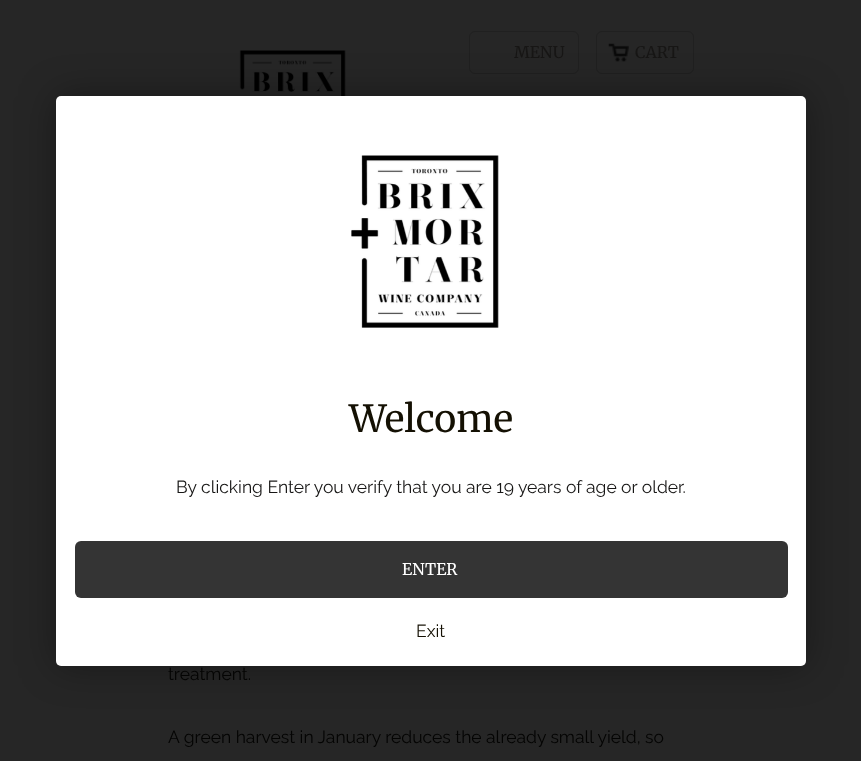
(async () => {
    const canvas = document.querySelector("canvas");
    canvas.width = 861;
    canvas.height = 761;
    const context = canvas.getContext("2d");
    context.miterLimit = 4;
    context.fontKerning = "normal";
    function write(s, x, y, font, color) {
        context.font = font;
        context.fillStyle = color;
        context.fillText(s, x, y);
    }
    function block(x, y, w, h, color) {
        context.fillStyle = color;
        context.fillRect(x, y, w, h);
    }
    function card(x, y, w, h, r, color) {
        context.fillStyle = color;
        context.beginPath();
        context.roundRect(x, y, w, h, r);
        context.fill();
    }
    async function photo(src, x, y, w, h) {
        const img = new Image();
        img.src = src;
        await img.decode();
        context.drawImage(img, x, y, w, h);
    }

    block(0, 0, 861, 761, "rgb(38, 38, 38)");
    await photo("media/1.png", 231, 50, 115, 46);
    context.beginPath();
    context.roundRect(469.5, 31.5, 109, 42, 5.5);
    context.strokeStyle = "rgb(32, 32, 32)";
    context.stroke();
    write("MENU", 514, 58, "16px Merriweather", "rgb(23, 22, 21)");
    await photo("media/2.png", 608, 43, 21, 19);
    context.beginPath();
    context.roundRect(596.5, 31.5, 97, 42, 5.5);
    context.stroke();
    write("CART", 635, 58, "16px Merriweather", "rgb(23, 22, 21)");
    context.fillStyle = "rgba(0, 0, 0, 0.35)";
    context.filter = "blur(19px)";
    context.beginPath();
    context.roundRect(56, 96, 750, 570, 5);
    context.fill();
    context.filter = "none";
    card(56, 96, 750, 570, 5, "rgb(255, 255, 255)");
    await photo("media/3.png", 351, 155, 148, 173);
    write("Welcome", 349, 432, "37.5px Merriweather", "rgb(20, 16, 3)");
    write("By clicking Enter you verify that you are 19 years of age or older.", 176, 493, "17.5px Raleway", "rgb(23, 22, 21)");
    card(75, 541, 713, 57, 6, "rgb(52, 52, 52)");
    write("ENTER", 402, 575, "16px Merriweather", "rgb(255, 255, 255)");
    write("Exit", 416, 637, "17.5px Raleway", "rgb(20, 16, 3)");
    write("treatment.", 168, 680, "17.5px Raleway", "rgb(4, 4, 3)");
    write("A green harvest in January reduces the already small yield, so", 168, 743, "17.5px Raleway", "rgb(4, 4, 3)");
})();
